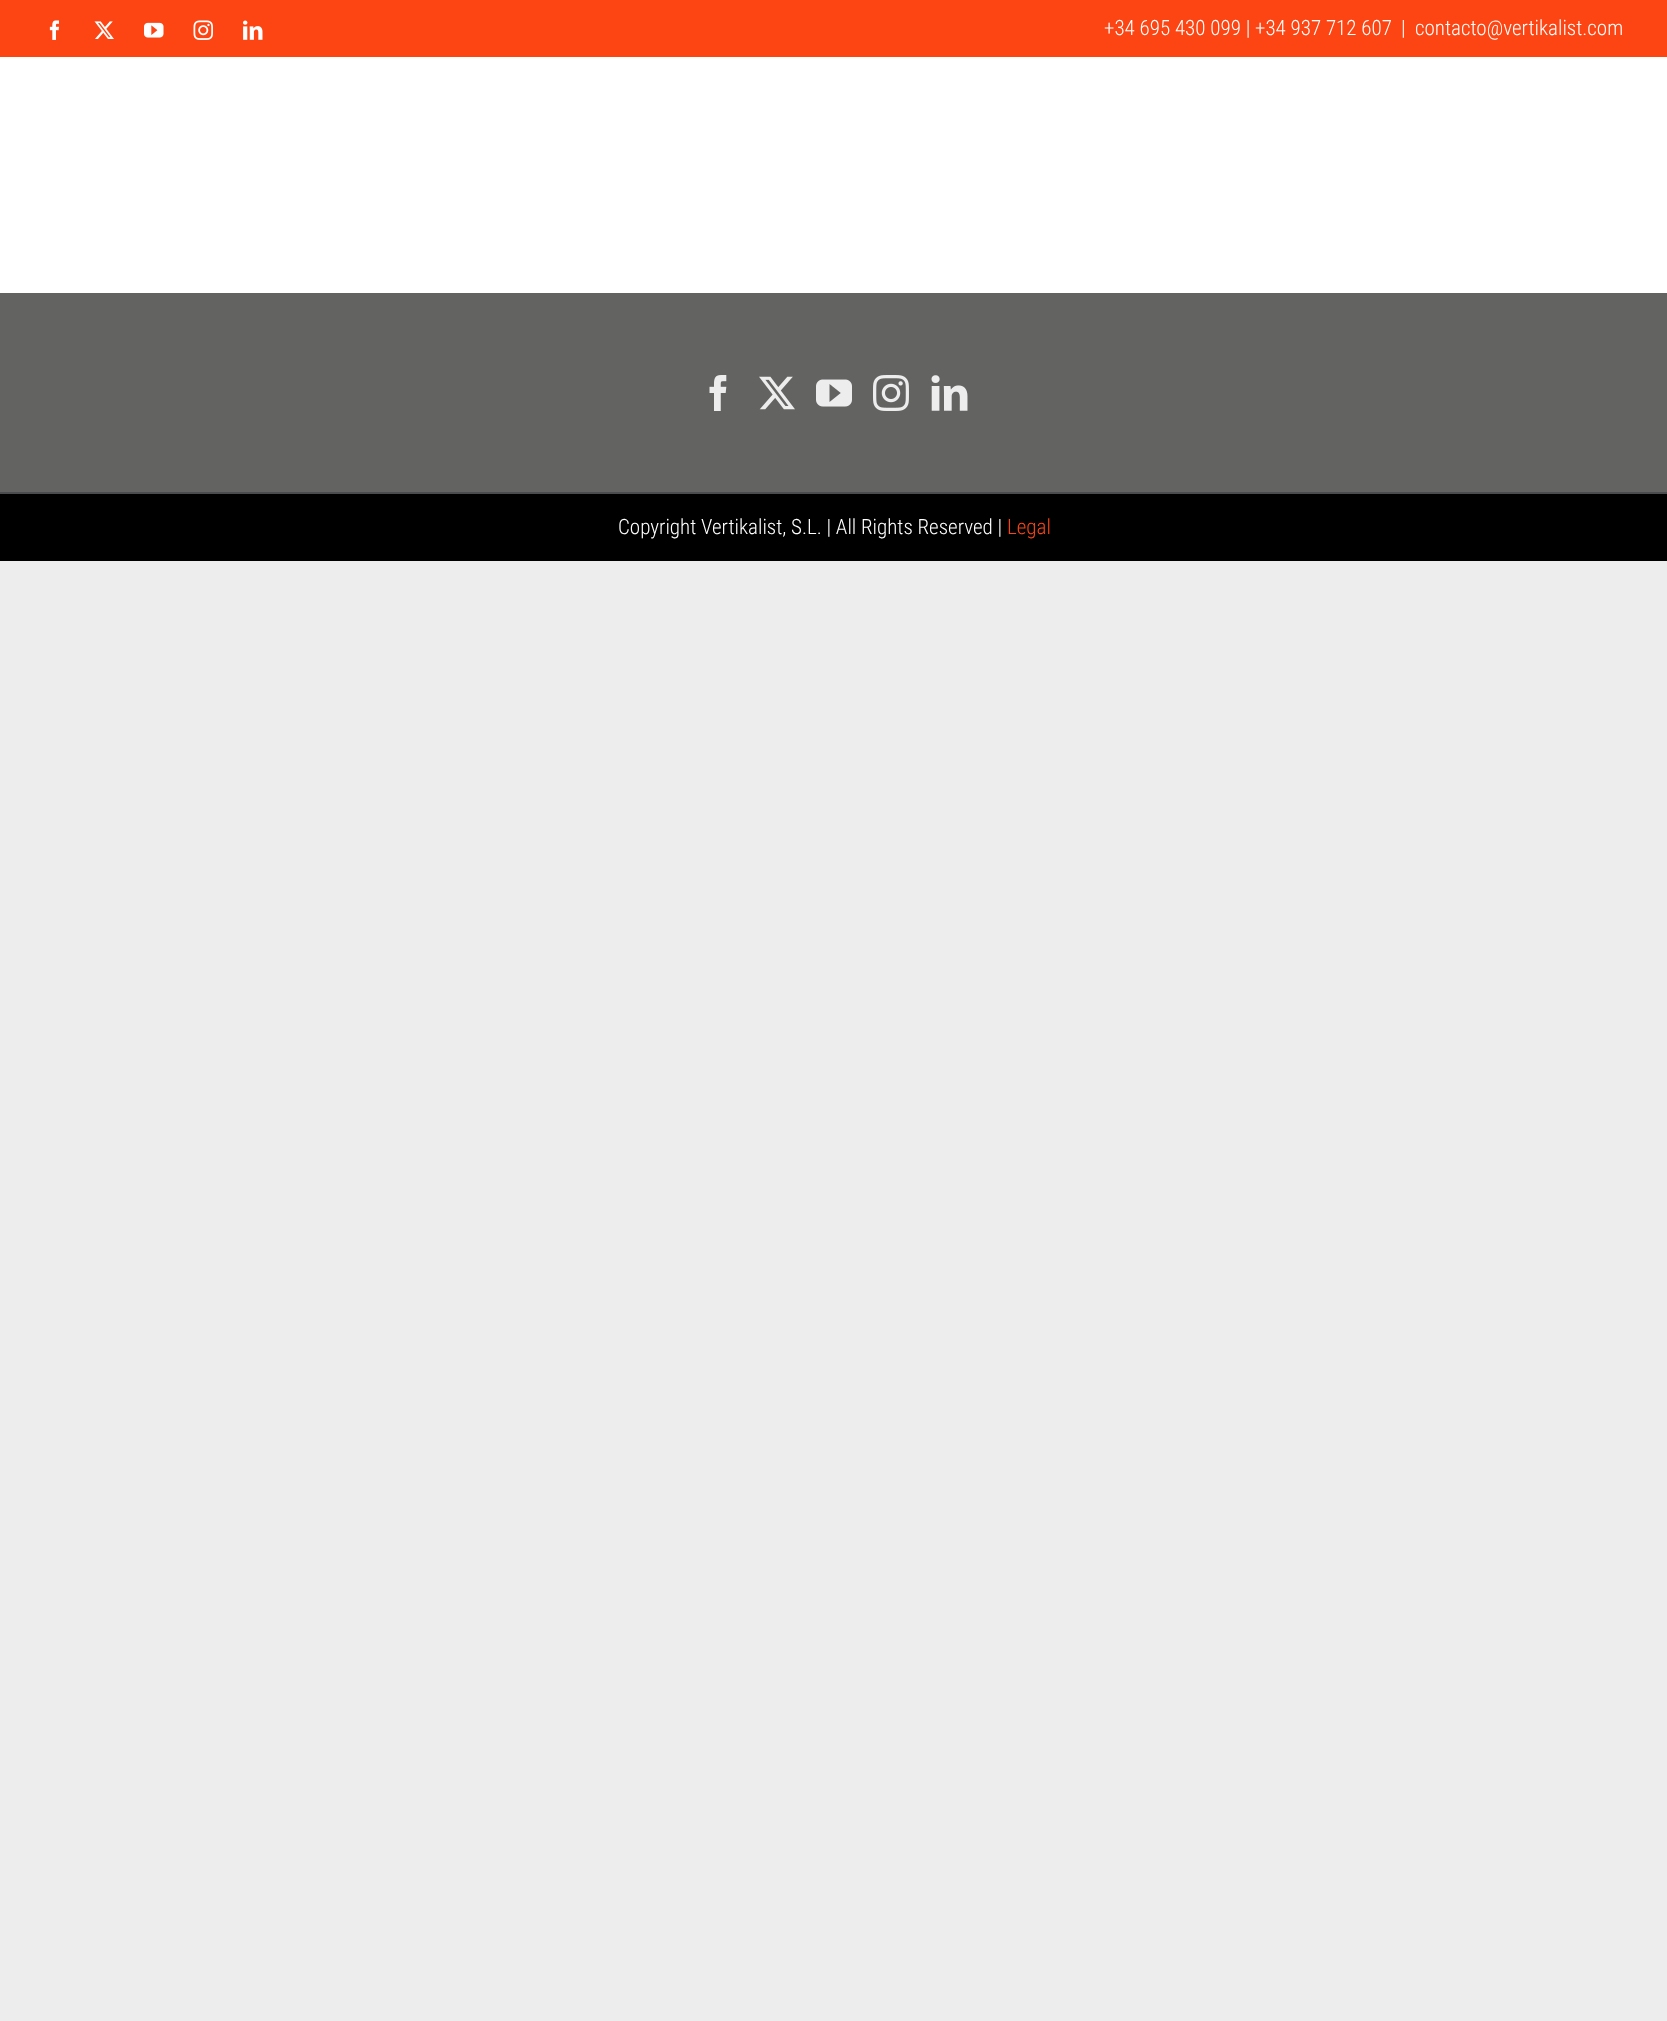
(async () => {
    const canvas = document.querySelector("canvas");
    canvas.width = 1667;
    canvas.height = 2021;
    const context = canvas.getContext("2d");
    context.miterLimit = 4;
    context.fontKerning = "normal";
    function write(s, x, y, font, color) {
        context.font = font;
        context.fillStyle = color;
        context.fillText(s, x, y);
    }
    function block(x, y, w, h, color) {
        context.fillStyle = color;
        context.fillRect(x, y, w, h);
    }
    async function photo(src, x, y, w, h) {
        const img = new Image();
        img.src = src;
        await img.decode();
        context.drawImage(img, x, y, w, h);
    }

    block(0, 0, 1667, 2021, "rgb(237, 237, 237)");
    block(0, 0, 1667, 57, "rgb(252, 69, 19)");
    await photo("media/1.png", 49, 20, 10, 20);
    await photo("media/2.png", 94, 21, 20, 18);
    await photo("media/3.png", 144, 22, 20, 16);
    await photo("media/4.png", 193, 20, 20, 20);
    await photo("media/5.png", 243, 20, 20, 20);
    write("+34 695 430 099 | +34 937 712 607", 1104, 35, "300 21px Roboto Condensed", "rgb(255, 255, 255)");
    write("|", 1401, 35, "300 21px Roboto Condensed", "rgb(255, 255, 255)");
    write("contacto@vertikalist.com", 1415, 35, "300 21px Roboto Condensed", "rgb(255, 255, 255)");
    block(0, 57, 1667, 236, "rgb(255, 255, 255)");
    block(0, 293, 1667, 199, "rgb(99, 99, 98)");
    await photo("media/6.png", 709, 375, 18, 36);
    await photo("media/7.png", 759, 376, 36, 34);
    await photo("media/8.png", 816, 379, 36, 28);
    await photo("media/9.png", 873, 375, 36, 36);
    await photo("media/10.png", 931, 375, 37, 36);
    block(0, 494, 1667, 67, "rgb(0, 0, 0)");
    block(0, 492, 1667, 2, "rgb(75, 76, 77)");
    write("Copyright Vertikalist, S.L. | All Rights Reserved |", 618, 534, "300 21px Roboto Condensed", "rgb(255, 255, 255)");
    write("Legal", 1007, 534, "300 21px Roboto Condensed", "rgb(252, 69, 19)");
})();
